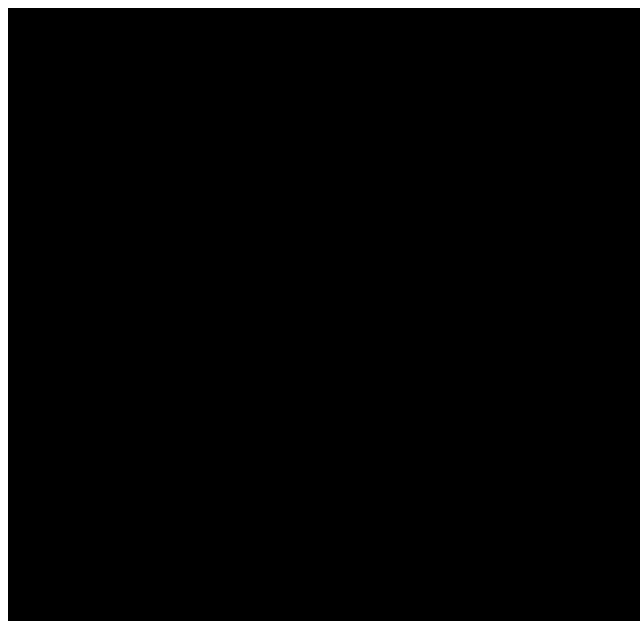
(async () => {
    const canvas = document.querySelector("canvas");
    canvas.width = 640;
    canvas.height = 621;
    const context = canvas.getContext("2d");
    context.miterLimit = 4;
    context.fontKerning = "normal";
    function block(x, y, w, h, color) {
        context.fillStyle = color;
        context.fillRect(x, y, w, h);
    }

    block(0, 0, 640, 621, "rgb(255, 255, 255)");
    block(8, 8, 632, 613, "rgb(0, 0, 0)");
})();
